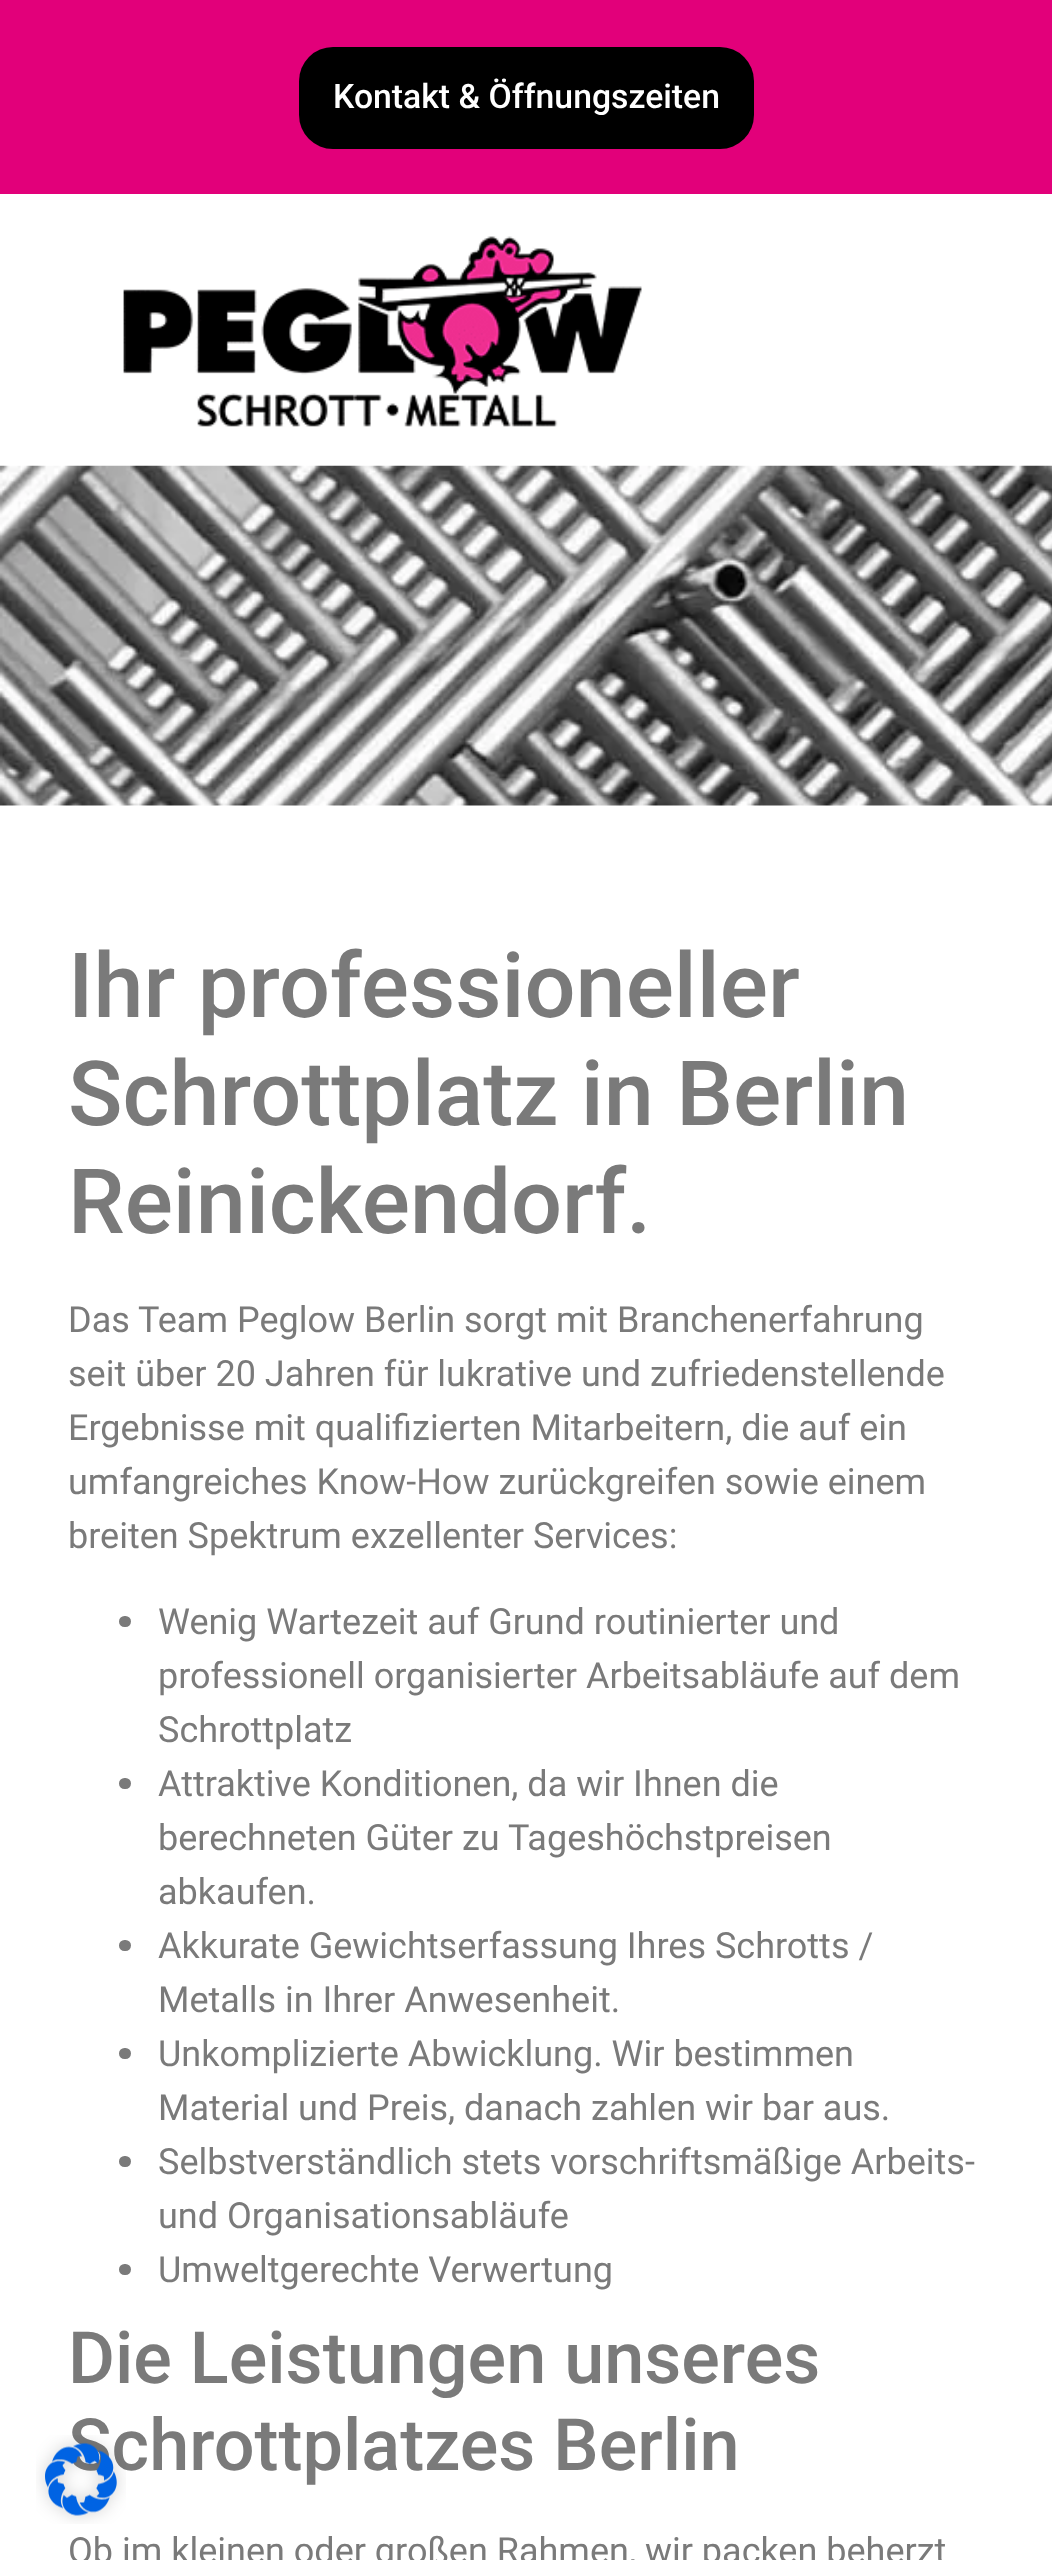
(async () => {
    const canvas = document.querySelector("canvas");
    canvas.width = 1052;
    canvas.height = 2560;
    const context = canvas.getContext("2d");
    context.miterLimit = 4;
    context.fontKerning = "normal";
    function write(s, x, y, font, color) {
        context.font = font;
        context.fillStyle = color;
        context.fillText(s, x, y);
    }
    function block(x, y, w, h, color) {
        context.fillStyle = color;
        context.fillRect(x, y, w, h);
    }
    function card(x, y, w, h, r, color) {
        context.fillStyle = color;
        context.beginPath();
        context.roundRect(x, y, w, h, r);
        context.fill();
    }
    async function photo(src, x, y, w, h) {
        const img = new Image();
        img.src = src;
        await img.decode();
        context.drawImage(img, x, y, w, h);
    }

    block(0, 0, 1052, 2560, "rgb(255, 255, 255)");
    block(0, 0, 1052, 194, "rgb(226, 0, 122)");
    card(299, 47, 455, 102, 34, "rgb(0, 0, 0)");
    write("Kontakt & Öffnungszeiten", 333, 108, "500 33.75px Roboto", "rgb(255, 255, 255)");
    await photo("media/1.png", 123, 236, 519, 191);
    await photo("media/2.png", 0, 465, 1052, 341);
    write("Ihr professioneller", 68, 1017, "500 90px Roboto", "rgb(122, 122, 122)");
    write("Schrottplatz in Berlin", 68, 1125, "500 90px Roboto", "rgb(122, 122, 122)");
    write("Reinickendorf.", 68, 1233, "500 90px Roboto", "rgb(122, 122, 122)");
    write("Das Team Peglow Berlin sorgt mit Branchenerfahrung", 68, 1332, "36px Roboto", "rgb(122, 122, 122)");
    write("seit über 20 Jahren für lukrative und zufriedenstellende", 68, 1386, "36px Roboto", "rgb(122, 122, 122)");
    write("Ergebnisse mit qualifizierten Mitarbeitern, die auf ein", 68, 1440, "36px Roboto", "rgb(122, 122, 122)");
    write("umfangreiches Know-How zurückgreifen sowie einem", 68, 1494, "36px Roboto", "rgb(122, 122, 122)");
    write("breiten Spektrum exzellenter Services:", 68, 1548, "36px Roboto", "rgb(122, 122, 122)");
    card(119, 1616, 12, 11, 5.5, "rgb(122, 122, 122)");
    write("Wenig Wartezeit auf Grund routinierter und", 158, 1634, "36px Roboto", "rgb(122, 122, 122)");
    write("professionell organisierter Arbeitsabläufe auf dem", 158, 1688, "36px Roboto", "rgb(122, 122, 122)");
    write("Schrottplatz", 158, 1742, "36px Roboto", "rgb(122, 122, 122)");
    card(119, 1778, 12, 11, 5.5, "rgb(122, 122, 122)");
    write("Attraktive Konditionen, da wir Ihnen die", 158, 1796, "36px Roboto", "rgb(122, 122, 122)");
    write("berechneten Güter zu Tageshöchstpreisen", 158, 1850, "36px Roboto", "rgb(122, 122, 122)");
    write("abkaufen.", 158, 1904, "36px Roboto", "rgb(122, 122, 122)");
    card(119, 1940, 12, 11, 5.5, "rgb(122, 122, 122)");
    write("Akkurate Gewichtserfassung Ihres Schrotts /", 158, 1958, "36px Roboto", "rgb(122, 122, 122)");
    write("Metalls in Ihrer Anwesenheit.", 158, 2012, "36px Roboto", "rgb(122, 122, 122)");
    card(119, 2048, 12, 11, 5.5, "rgb(122, 122, 122)");
    write("Unkomplizierte Abwicklung. Wir bestimmen", 158, 2066, "36px Roboto", "rgb(122, 122, 122)");
    write("Material und Preis, danach zahlen wir bar aus.", 158, 2120, "36px Roboto", "rgb(122, 122, 122)");
    card(119, 2156, 12, 11, 5.5, "rgb(122, 122, 122)");
    write("Selbstverständlich stets vorschriftsmäßige Arbeits-", 158, 2174, "36px Roboto", "rgb(122, 122, 122)");
    write("und Organisationsabläufe", 158, 2228, "36px Roboto", "rgb(122, 122, 122)");
    card(119, 2264, 12, 11, 5.5, "rgb(122, 122, 122)");
    write("Umweltgerechte Verwertung", 158, 2282, "36px Roboto", "rgb(122, 122, 122)");
    write("Die Leistungen unseres", 68, 2383, "500 72px Roboto", "rgb(122, 122, 122)");
    write("Schrottplatzes Berlin", 68, 2470, "500 72px Roboto", "rgb(122, 122, 122)");
    write("Ob im kleinen oder großen Rahmen, wir packen beherzt", 68, 2563, "36px Roboto", "rgb(122, 122, 122)");
    await photo("media/3.png", 36, 2435, 90, 89);
})();
